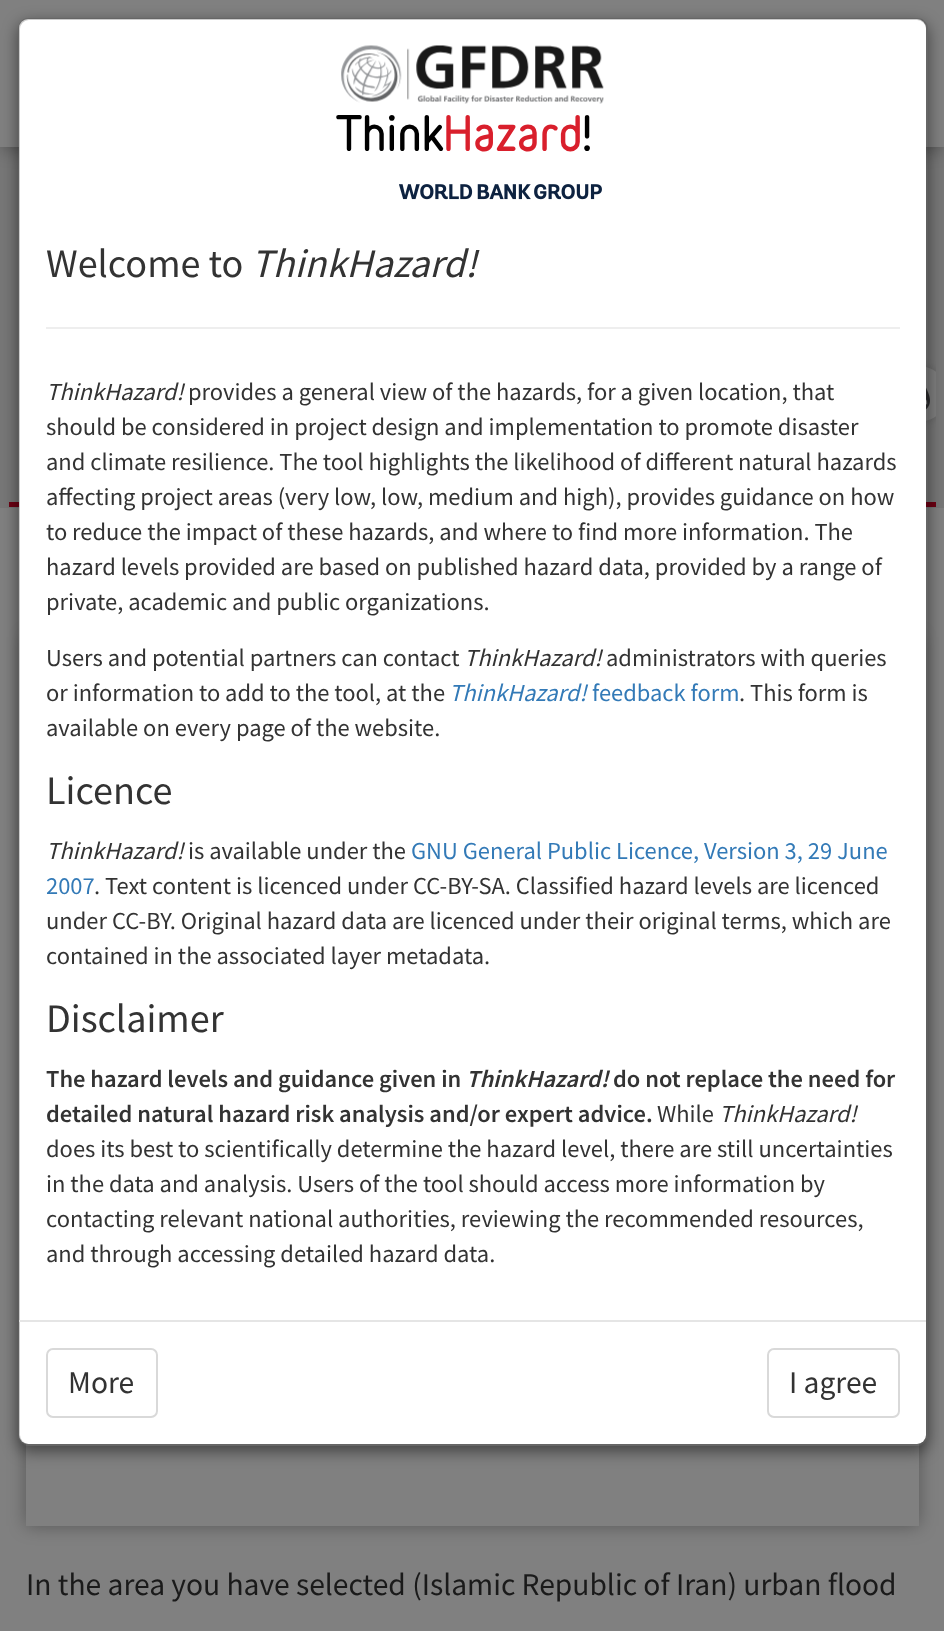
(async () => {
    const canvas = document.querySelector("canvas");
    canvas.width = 944;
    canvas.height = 1631;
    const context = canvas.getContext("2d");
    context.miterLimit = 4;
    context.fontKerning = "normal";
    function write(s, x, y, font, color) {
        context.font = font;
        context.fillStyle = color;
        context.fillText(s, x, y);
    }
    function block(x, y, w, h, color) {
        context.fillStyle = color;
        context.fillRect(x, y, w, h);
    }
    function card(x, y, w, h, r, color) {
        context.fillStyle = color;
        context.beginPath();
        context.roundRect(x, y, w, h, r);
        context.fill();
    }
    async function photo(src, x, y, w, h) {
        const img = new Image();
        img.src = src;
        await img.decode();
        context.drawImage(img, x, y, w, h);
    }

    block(0, 0, 944, 1631, "rgb(128, 128, 128)");
    block(0, 147, 944, 361, "rgb(119, 119, 119)");
    context.fillStyle = "rgba(0, 0, 0, 0.33)";
    context.filter = "blur(9px)";
    context.beginPath();
    context.rect(2, 5, 941, 144);
    context.fill();
    context.filter = "none";
    block(0, 0, 944, 147, "rgb(128, 128, 128)");
    block(9, 502, 17, 5, "rgb(110, 0, 19)");
    block(926, 502, 10, 5, "rgb(110, 0, 19)");
    context.save();
    context.beginPath();
    context.rect(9, 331, 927, 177);
    context.clip();
    context.fillStyle = "rgba(0, 0, 0, 0.15)";
    context.filter = "blur(4.5px)";
    context.beginPath();
    context.roundRect(891, 366, 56, 56, 28);
    context.fill();
    context.filter = "none";
    context.restore();
    context.save();
    context.beginPath();
    context.rect(9, 331, 927, 177);
    context.clip();
    context.fillStyle = "rgb(128, 128, 128)";
    context.beginPath();
    context.arc(919, 394, 28, 0, Math.PI * 2);
    context.fill();
    context.restore();
    await photo("media/3.png", 926, 387, 4, 23);
    context.fillStyle = "rgba(0, 0, 0, 0.33)";
    context.filter = "blur(9px)";
    context.beginPath();
    context.rect(26, 637, 893, 889);
    context.fill();
    context.filter = "none";
    block(26, 1443, 893, 83, "rgb(128, 128, 128)");
    context.save();
    context.beginPath();
    context.moveTo(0, 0);
    context.lineTo(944, 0);
    context.lineTo(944, 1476);
    context.lineTo(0, 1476);
    context.closePath();
    context.moveTo(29, 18);
    context.lineTo(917, 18);
    context.bezierCurveTo(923, 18, 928, 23, 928, 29);
    context.lineTo(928, 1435);
    context.bezierCurveTo(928, 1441, 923, 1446, 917, 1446);
    context.lineTo(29, 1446);
    context.bezierCurveTo(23, 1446, 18, 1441, 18, 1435);
    context.lineTo(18, 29);
    context.bezierCurveTo(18, 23, 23, 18, 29, 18);
    context.closePath();
    context.clip("evenodd");
    context.fillStyle = "rgba(0, 0, 0, 0.5)";
    context.filter = "blur(8px)";
    context.beginPath();
    context.roundRect(18, 23, 910, 1428, 11);
    context.fill();
    context.filter = "none";
    context.restore();
    card(19, 19, 907, 1425, 9, "rgb(255, 255, 255)");
    context.beginPath();
    context.roundRect(19, 19, 908, 1426, 10);
    context.strokeStyle = "rgba(0, 0, 0, 0.2)";
    context.lineWidth = 2;
    context.stroke();
    await photo("media/1.png", 341, 45, 263, 59);
    write("Think", 336, 151, "900 44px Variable", "rgb(0, 0, 0)");
    write("Hazard", 443, 151, "900 44px Variable", "rgb(217, 31, 44)");
    write("!", 582, 151, "900 44px Variable", "rgb(0, 0, 0)");
    await photo("media/2.png", 399, 184, 203, 16);
    write("Welcome to", 46, 277, "40.25px Source Sans Pro", "rgb(51, 51, 51)");
    write("ThinkHazard!", 251, 277, "italic 40.25px Source Sans Pro", "rgb(51, 51, 51)");
    block(46, 327, 854, 2, "rgb(238, 238, 238)");
    write("ThinkHazard!", 46, 400, "italic 24.5px Source Sans Pro", "rgb(51, 51, 51)");
    write("provides a general view of the hazards, for a given location, that", 188, 400, "24.5px Source Sans Pro", "rgb(51, 51, 51)");
    write("should be considered in project design and implementation to promote disaster", 46, 435, "24.5px Source Sans Pro", "rgb(51, 51, 51)");
    write("and climate resilience. The tool highlights the likelihood of different natural hazards", 46, 470, "24.5px Source Sans Pro", "rgb(51, 51, 51)");
    write("affecting project areas (very low, low, medium and high), provides guidance on how", 46, 505, "24.5px Source Sans Pro", "rgb(51, 51, 51)");
    write("to reduce the impact of these hazards, and where to find more information. The", 46, 540, "24.5px Source Sans Pro", "rgb(51, 51, 51)");
    write("hazard levels provided are based on published hazard data, provided by a range of", 46, 575, "24.5px Source Sans Pro", "rgb(51, 51, 51)");
    write("private, academic and public organizations.", 46, 610, "24.5px Source Sans Pro", "rgb(51, 51, 51)");
    write("Users and potential partners can contact", 46, 666, "24.5px Source Sans Pro", "rgb(51, 51, 51)");
    write("ThinkHazard!", 464, 666, "italic 24.5px Source Sans Pro", "rgb(51, 51, 51)");
    write("administrators with queries", 606, 666, "24.5px Source Sans Pro", "rgb(51, 51, 51)");
    write("or information to add to the tool, at the", 46, 701, "24.5px Source Sans Pro", "rgb(51, 51, 51)");
    write("ThinkHazard!", 449, 701, "italic 24.5px Source Sans Pro", "rgb(51, 122, 183)");
    write("feedback form", 592, 701, "24.5px Source Sans Pro", "rgb(51, 122, 183)");
    write(". This form is", 739, 701, "24.5px Source Sans Pro", "rgb(51, 51, 51)");
    write("available on every page of the website.", 46, 736, "24.5px Source Sans Pro", "rgb(51, 51, 51)");
    write("Licence", 46, 804, "40.25px Source Sans Pro", "rgb(51, 51, 51)");
    write("ThinkHazard!", 46, 859, "italic 24.5px Source Sans Pro", "rgb(51, 51, 51)");
    write("is available under the", 188, 859, "24.5px Source Sans Pro", "rgb(51, 51, 51)");
    write("GNU General Public Licence, Version 3, 29 June", 411, 859, "24.5px Source Sans Pro", "rgb(51, 122, 183)");
    write("2007", 46, 894, "24.5px Source Sans Pro", "rgb(51, 122, 183)");
    write(". Text content is licenced under CC-BY-SA. Classified hazard levels are licenced", 94, 894, "24.5px Source Sans Pro", "rgb(51, 51, 51)");
    write("under CC-BY. Original hazard data are licenced under their original terms, which are", 46, 929, "24.5px Source Sans Pro", "rgb(51, 51, 51)");
    write("contained in the associated layer metadata.", 46, 964, "24.5px Source Sans Pro", "rgb(51, 51, 51)");
    write("Disclaimer", 46, 1032, "40.25px Source Sans Pro", "rgb(51, 51, 51)");
    write("The hazard levels and guidance given in", 46, 1087, "600 24.5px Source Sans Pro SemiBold", "rgb(51, 51, 51)");
    write("ThinkHazard!", 466, 1087, "italic 600 24.5px Source Sans Pro SemiBold", "rgb(51, 51, 51)");
    write("do not replace the need for", 613, 1087, "600 24.5px Source Sans Pro SemiBold", "rgb(51, 51, 51)");
    write("detailed natural hazard risk analysis and/or expert advice.", 46, 1122, "600 24.5px Source Sans Pro SemiBold", "rgb(51, 51, 51)");
    write("While", 657, 1122, "24.5px Source Sans Pro", "rgb(51, 51, 51)");
    write("ThinkHazard!", 719, 1122, "italic 24.5px Source Sans Pro", "rgb(51, 51, 51)");
    write("does its best to scientifically determine the hazard level, there are still uncertainties", 46, 1157, "24.5px Source Sans Pro", "rgb(51, 51, 51)");
    write("in the data and analysis. Users of the tool should access more information by", 46, 1192, "24.5px Source Sans Pro", "rgb(51, 51, 51)");
    write("contacting relevant national authorities, reviewing the recommended resources,", 46, 1227, "24.5px Source Sans Pro", "rgb(51, 51, 51)");
    write("and through accessing detailed hazard data.", 46, 1262, "24.5px Source Sans Pro", "rgb(51, 51, 51)");
    block(19, 1320, 907, 2, "rgb(229, 229, 229)");
    context.beginPath();
    context.roundRect(47, 1349, 110, 68, 6);
    context.strokeStyle = "rgb(217, 217, 217)";
    context.stroke();
    write("More", 68, 1393, "31.5px Source Sans Pro", "rgb(51, 51, 51)");
    context.beginPath();
    context.roundRect(768, 1349, 131, 68, 6);
    context.stroke();
    write("I agree", 789, 1393, "31.5px Source Sans Pro", "rgb(51, 51, 51)");
    write("In the area you have selected (Islamic Republic of Iran) urban flood", 26, 1595, "31.5px Source Sans Pro", "rgb(26, 26, 26)");
})();
